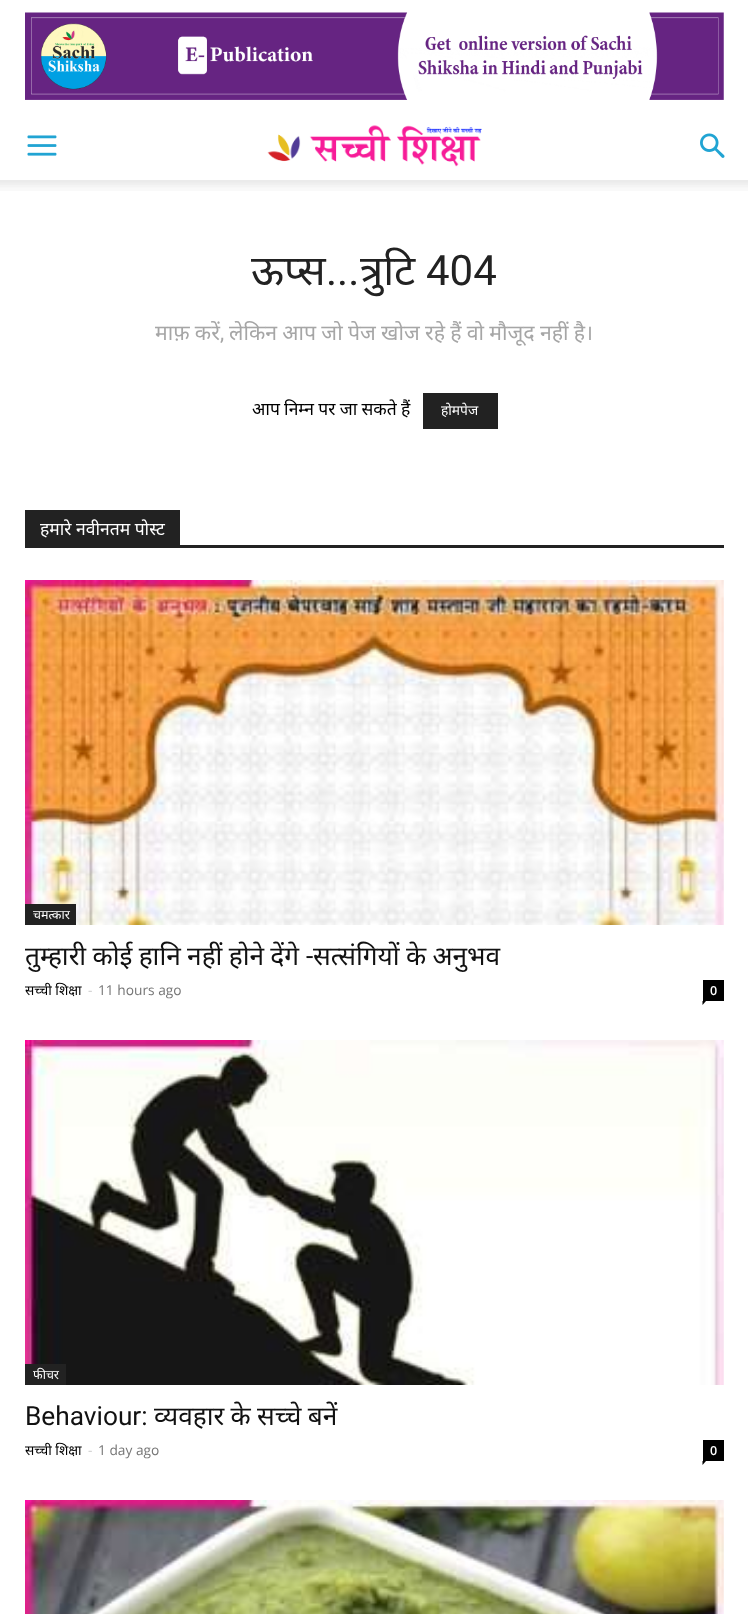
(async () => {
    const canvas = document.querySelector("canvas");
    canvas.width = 748;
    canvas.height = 1614;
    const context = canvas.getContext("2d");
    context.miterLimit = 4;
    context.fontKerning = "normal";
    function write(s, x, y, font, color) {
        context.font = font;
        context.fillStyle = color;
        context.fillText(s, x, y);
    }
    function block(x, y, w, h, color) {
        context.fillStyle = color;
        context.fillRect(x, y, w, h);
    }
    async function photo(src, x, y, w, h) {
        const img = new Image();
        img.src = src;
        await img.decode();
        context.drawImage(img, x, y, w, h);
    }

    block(0, 0, 748, 1614, "rgb(255, 255, 255)");
    await photo("media/1.png", 25, 12, 699, 88);
    await photo("media/2.png", 27, 135, 30, 21);
    await photo("media/3.png", 267, 125, 215, 42);
    await photo("media/4.png", 700, 133, 25, 25);
    await photo("media/5.png", 0, 180, 748, 11);
    write("ऊप्स", 251, 285, "42px Noto Sans", "rgb(34, 34, 34)");
    write("...", 326, 285, "42px Roboto", "rgb(34, 34, 34)");
    write("त्रुटि", 360, 285, "42px Noto Sans", "rgb(34, 34, 34)");
    write("404", 426, 285, "42px Roboto", "rgb(34, 34, 34)");
    context.wordSpacing = "-0.25px";
    write("माफ़ करें", 155, 340, "21.25px Noto Sans", "rgb(166, 166, 166)");
    context.wordSpacing = "0px";
    write(",", 220, 340, "21.25px Roboto", "rgb(166, 166, 166)");
    context.wordSpacing = "-0.25px";
    write("लेकिन आप जो पेज खोज रहे हैं वो मौजूद नहीं है।", 229, 340, "21.25px Noto Sans", "rgb(166, 166, 166)");
    write("आप निम्न पर जा सकते हैं", 252, 415, "17.5px Noto Sans", "rgb(0, 0, 0)");
    block(423, 393, 75, 36, "rgb(34, 34, 34)");
    context.wordSpacing = "0px";
    write("होमपेज", 441, 415, "13.75px Noto Sans", "rgb(255, 255, 255)");
    block(25, 545, 699, 3, "rgb(34, 34, 34)");
    block(25, 510, 155, 35, "rgb(34, 34, 34)");
    write("हमारे नवीनतम पोस्ट", 40, 535, "17.5px Noto Sans", "rgb(255, 255, 255)");
    await photo("media/6.png", 25, 580, 699, 345);
    block(25, 904, 51, 21, "rgb(34, 34, 34)");
    write("चमत्कार", 33, 919, "12.5px Noto Sans", "rgb(255, 255, 255)");
    context.wordSpacing = "-0.5px";
    write("तुम्हारी कोई हानि नहीं होने देंगे", 25, 965, "26.25px Noto Sans", "rgb(17, 17, 17)");
    context.wordSpacing = "0px";
    write("-", 306, 965, "26.25px Roboto", "rgb(17, 17, 17)");
    context.wordSpacing = "-0.5px";
    write("सत्संगियों के अनुभव", 313, 965, "26.25px Noto Sans", "rgb(17, 17, 17)");
    context.wordSpacing = "0px";
    write("सच्ची शिक्षा", 25, 995, "13.75px Noto Sans", "rgb(0, 0, 0)");
    write("-", 88, 995, "13.75px Open Sans", "rgb(204, 204, 204)");
    write("11 hours ago", 98, 995, "13.75px Open Sans", "rgb(118, 118, 118)");
    block(703, 980, 21, 21, "rgb(0, 0, 0)");
    write("0", 710, 995, "600 12.5px Open Sans", "rgb(255, 255, 255)");
    context.fillStyle = "rgb(0, 0, 0)";
    context.beginPath();
    context.moveTo(702.5, 1001);
    context.lineTo(706, 1001);
    context.lineTo(702.5, 1005);
    context.closePath();
    context.fill();
    await photo("media/7.png", 25, 1040, 699, 345);
    block(25, 1364, 41, 21, "rgb(34, 34, 34)");
    write("फीचर", 33, 1379, "12.5px Noto Sans", "rgb(255, 255, 255)");
    write("Behaviour:", 25, 1425, "26.25px Roboto", "rgb(17, 17, 17)");
    context.wordSpacing = "-0.5px";
    write("व्यवहार के सच्चे बनें", 154, 1425, "26.25px Noto Sans", "rgb(17, 17, 17)");
    context.wordSpacing = "0px";
    write("सच्ची शिक्षा", 25, 1455, "13.75px Noto Sans", "rgb(0, 0, 0)");
    write("-", 88, 1455, "13.75px Open Sans", "rgb(204, 204, 204)");
    write("1 day ago", 98, 1455, "13.75px Open Sans", "rgb(118, 118, 118)");
    block(703, 1440, 21, 21, "rgb(0, 0, 0)");
    write("0", 710, 1455, "600 12.5px Open Sans", "rgb(255, 255, 255)");
    context.fillStyle = "rgb(0, 0, 0)";
    context.beginPath();
    context.moveTo(702.5, 1461);
    context.lineTo(706, 1461);
    context.lineTo(702.5, 1465);
    context.closePath();
    context.fill();
    await photo("media/8.png", 25, 1500, 699, 114);
})();
